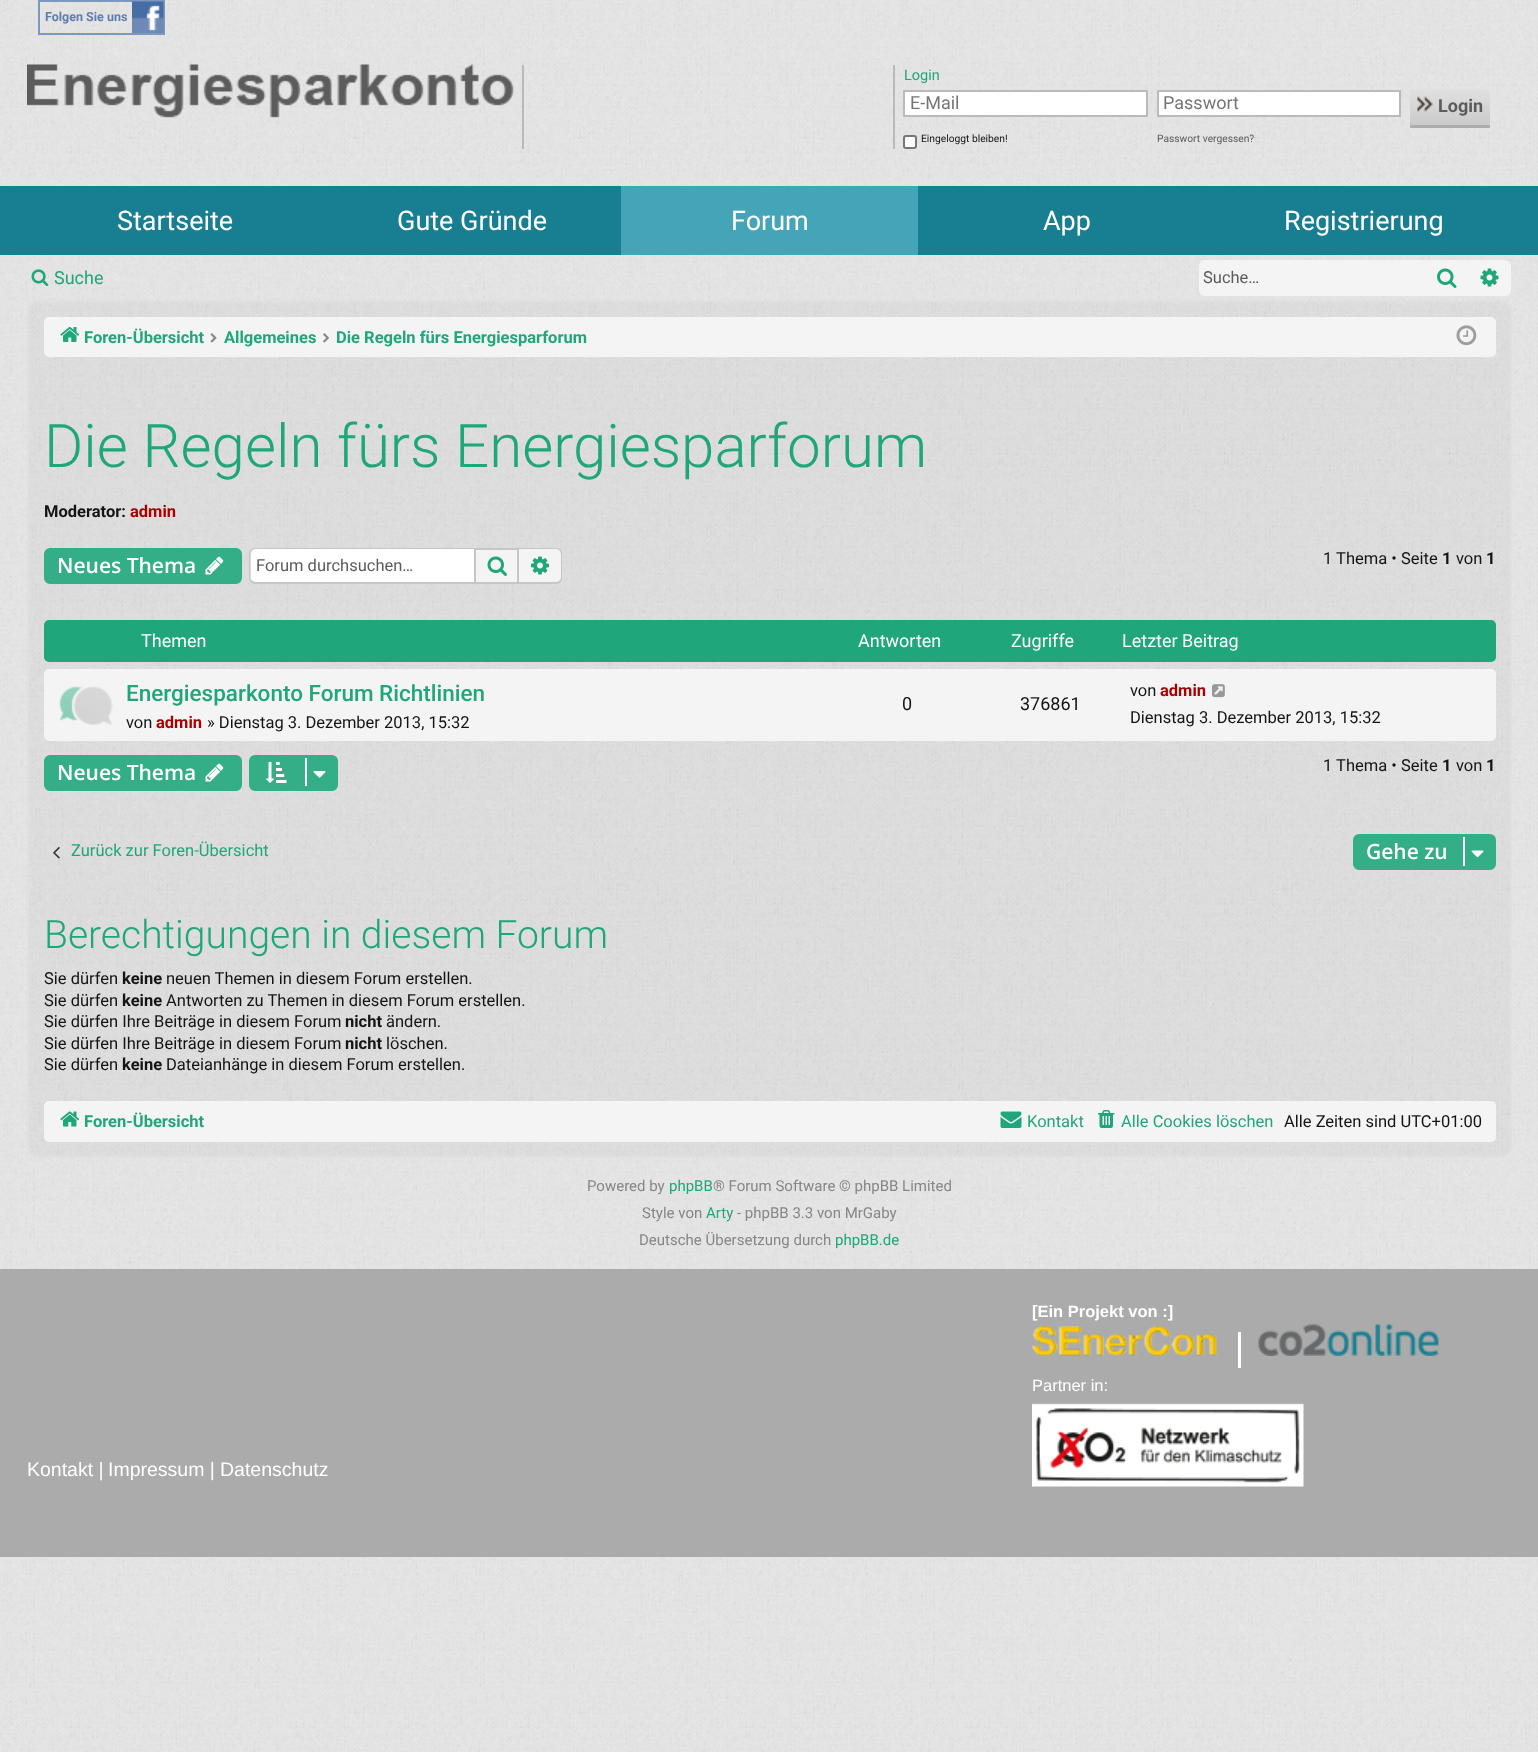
(async () => {
    const canvas = document.querySelector("canvas");
    canvas.width = 1538;
    canvas.height = 1752;
    const context = canvas.getContext("2d");
    context.miterLimit = 4;
    context.fontKerning = "normal";
    function write(s, x, y, font, color) {
        context.font = font;
        context.fillStyle = color;
        context.fillText(s, x, y);
    }
    function block(x, y, w, h, color) {
        context.fillStyle = color;
        context.fillRect(x, y, w, h);
    }
    function card(x, y, w, h, r, color) {
        context.fillStyle = color;
        context.beginPath();
        context.roundRect(x, y, w, h, r);
        context.fill();
    }
    async function photo(src, x, y, w, h) {
        const img = new Image();
        img.src = src;
        await img.decode();
        context.drawImage(img, x, y, w, h);
    }
    let gradient;

    block(0, 0, 1538, 1752, "rgb(232, 232, 232)");
    await photo("media/1.png", 0, 0, 1538, 1752);
    context.strokeStyle = "rgb(125, 151, 190)";
    context.lineWidth = 2;
    context.strokeRect(39, 1, 125, 33);
    write("Folgen Sie uns", 45, 21, "bold 12.5px Roboto", "rgb(93, 125, 174)");
    await photo("media/2.png", 132, 1, 32, 32);
    await photo("media/3.png", 27, 64, 487, 54);
    block(893, 65, 2, 84, "rgb(186, 186, 186)");
    block(522, 65, 2, 84, "rgb(186, 186, 186)");
    write("Login", 904, 80, "14.5px Roboto", "rgb(31, 166, 122)");
    context.fillStyle = "rgb(255, 255, 255)";
    context.beginPath();
    context.rect(904, 91, 243, 25);
    context.fill();
    context.strokeStyle = "rgb(186, 186, 186)";
    context.stroke();
    write("E-Mail", 910, 109, "18px Roboto", "rgb(117, 117, 117)");
    context.fillStyle = "rgb(255, 255, 255)";
    context.beginPath();
    context.rect(1158, 91, 242, 25);
    context.fill();
    context.stroke();
    write("Passwort", 1163, 109, "18px Roboto", "rgb(117, 117, 117)");
    context.fillStyle = "rgb(174, 174, 174)";
    context.beginPath();
    context.moveTo(1410, 124);
    context.lineTo(1410, 128);
    context.lineTo(1490, 128);
    context.lineTo(1490, 92);
    context.lineTo(1490, 124);
    context.closePath();
    context.fill();
    gradient = context.createLinearGradient(1450, 89, 1450, 125);
    gradient.addColorStop(0, "rgb(225, 225, 225)");
    gradient.addColorStop(1, "rgb(202, 202, 202)");
    context.fillStyle = gradient;
    context.fillRect(1410, 89, 80, 36);
    await photo("media/4.png", 1417, 96, 16, 16);
    write("Login", 1438, 112, "bold 18px Roboto", "rgb(91, 91, 91)");
    context.fillStyle = "rgb(255, 255, 255)";
    context.beginPath();
    context.roundRect(904, 136, 12, 12, 2);
    context.fill();
    context.strokeStyle = "rgb(118, 118, 118)";
    context.stroke();
    write("Eingeloggt bleiben!", 921, 142, "10.25px Roboto", "rgb(20, 20, 20)");
    write("Passwort vergessen?", 1157, 142, "10.25px Roboto", "rgb(91, 91, 91)");
    block(0, 186, 1538, 69, "rgb(24, 126, 145)");
    write("Startseite", 117, 230, "27px Roboto", "rgb(255, 255, 255)");
    write("Gute Gründe", 397, 230, "27px Roboto", "rgb(255, 255, 255)");
    block(621, 186, 297, 69, "rgb(67, 165, 183)");
    write("Forum", 731, 230, "27px Roboto", "rgb(255, 255, 255)");
    write("App", 1043, 230, "27px Roboto", "rgb(255, 255, 255)");
    write("Registrierung", 1284, 230, "27px Roboto", "rgb(255, 255, 255)");
    await photo("media/5.png", 31, 269, 18, 17);
    write("Suche", 54, 284, "18px Roboto", "rgb(31, 166, 122)");
    context.fillStyle = "rgb(244, 244, 244)";
    context.beginPath();
    context.roundRect(1199, 260, 225, 36, [6, 0, 0, 6]);
    context.fill();
    write("Suche…", 1203, 283, "16.5px Roboto", "rgb(91, 91, 91)");
    block(1424, 260, 45, 36, "rgb(244, 244, 244)");
    await photo("media/6.png", 1437, 268, 20, 20);
    context.beginPath();
    context.roundRect(1469, 260, 42, 36, [0, 6, 6, 0]);
    context.fill();
    await photo("media/7.png", 1480, 268, 19, 19);
    card(27, 300, 1485, 858, 12, "rgb(224, 224, 224)");
    await photo("media/8.png", 27, 300, 1485, 858);
    context.beginPath();
    context.roundRect(28, 301, 1483, 856, 11);
    context.strokeStyle = "rgb(224, 224, 224)";
    context.stroke();
    card(44, 317, 1452, 40, 5, "rgb(244, 244, 244)");
    await photo("media/9.png", 60, 327, 20, 15);
    write("Foren-Übersicht", 84, 343, "bold 16.5px Roboto", "rgb(31, 166, 122)");
    await photo("media/10.png", 210, 333, 7, 10);
    write("Allgemeines", 224, 343, "bold 16.5px Roboto", "rgb(31, 166, 122)");
    await photo("media/11.png", 323, 333, 6, 10);
    write("Die Regeln fürs Energiesparforum", 336, 343, "bold 16.5px Roboto", "rgb(31, 166, 122)");
    await photo("media/12.png", 1456, 325, 21, 21);
    write("Die Regeln fürs Energiesparforum", 44, 467, "300 60px Roboto", "rgb(31, 166, 122)");
    write("Moderator:", 44, 517, "bold 16.5px Roboto", "rgb(20, 20, 20)");
    write("admin", 130, 517, "bold 16.5px Roboto", "rgb(170, 0, 0)");
    context.fillStyle = "rgb(52, 174, 134)";
    context.beginPath();
    context.roundRect(45, 549, 196, 34, 5);
    context.fill();
    context.strokeStyle = "rgb(52, 174, 134)";
    context.stroke();
    write("Neues Thema", 57, 573, "600 21px Open Sans", "rgb(255, 255, 255)");
    await photo("media/13.png", 205, 556, 19, 19);
    context.beginPath();
    context.roundRect(251, 549, 223, 33, [5, 0, 0, 5]);
    context.fill();
    context.fillStyle = "rgb(198, 198, 198)";
    context.beginPath();
    context.moveTo(255, 548);
    context.lineTo(474, 548);
    context.lineTo(474, 584);
    context.lineTo(255, 584);
    context.bezierCurveTo(252, 584, 249, 581, 249, 578);
    context.lineTo(249, 554);
    context.bezierCurveTo(249, 550, 252, 548, 255, 548);
    context.closePath();
    context.moveTo(255, 549);
    context.lineTo(474, 549);
    context.lineTo(474, 582);
    context.lineTo(255, 582);
    context.bezierCurveTo(253, 582, 250, 580, 250, 578);
    context.lineTo(250, 554);
    context.bezierCurveTo(250, 551, 253, 549, 255, 549);
    context.closePath();
    context.fill("evenodd");
    write("Forum durchsuchen…", 256, 571, "16.5px Roboto", "rgb(91, 91, 91)");
    context.fillStyle = "rgb(244, 244, 244)";
    context.beginPath();
    context.rect(475, 549, 43, 34);
    context.fill();
    context.strokeStyle = "rgb(198, 198, 198)";
    context.stroke();
    await photo("media/14.png", 487, 556, 20, 20);
    context.beginPath();
    context.roundRect(519, 549, 42, 33, [0, 5, 5, 0]);
    context.fill();
    context.fillStyle = "rgb(198, 198, 198)";
    context.beginPath();
    context.moveTo(519, 548);
    context.lineTo(556, 548);
    context.bezierCurveTo(560, 548, 562, 550, 562, 554);
    context.lineTo(562, 578);
    context.bezierCurveTo(562, 581, 560, 584, 556, 584);
    context.lineTo(519, 584);
    context.closePath();
    context.moveTo(519, 549);
    context.lineTo(556, 549);
    context.bezierCurveTo(559, 549, 561, 551, 561, 554);
    context.lineTo(561, 578);
    context.bezierCurveTo(561, 580, 559, 582, 556, 582);
    context.lineTo(519, 582);
    context.closePath();
    context.fill("evenodd");
    await photo("media/15.png", 531, 556, 18, 19);
    write("1 Thema • Seite", 1323, 564, "16.5px Roboto", "rgb(20, 20, 20)");
    write("1", 1442, 564, "bold 16.5px Roboto", "rgb(20, 20, 20)");
    write("von", 1456, 564, "16.5px Roboto", "rgb(20, 20, 20)");
    write("1", 1486, 564, "bold 16.5px Roboto", "rgb(20, 20, 20)");
    card(44, 620, 1452, 42, 5, "rgb(31, 166, 122)");
    write("Themen", 141, 647, "18px Roboto", "rgb(255, 255, 255)");
    write("Antworten", 858, 647, "18px Roboto", "rgb(255, 255, 255)");
    write("Zugriffe", 1011, 647, "18px Roboto", "rgb(255, 255, 255)");
    write("Letzter Beitrag", 1122, 647, "18px Roboto", "rgb(255, 255, 255)");
    card(44, 669, 1452, 72, 5, "rgb(244, 244, 244)");
    await photo("media/16.png", 59, 686, 54, 39);
    write("Energiesparkonto Forum Richtlinien", 126, 701, "500 22.5px Roboto", "rgb(31, 166, 122)");
    write("von", 126, 728, "16.5px Roboto", "rgb(20, 20, 20)");
    write("admin", 156, 728, "bold 16.5px Roboto", "rgb(170, 0, 0)");
    write("» Dienstag 3. Dezember 2013, 15:32", 207, 728, "16.5px Roboto", "rgb(20, 20, 20)");
    write("0", 902, 710, "18px Roboto", "rgb(20, 20, 20)");
    write("376861", 1020, 710, "18px Roboto", "rgb(20, 20, 20)");
    write("von", 1130, 696, "16.5px Roboto", "rgb(20, 20, 20)");
    write("admin", 1160, 696, "bold 16.5px Roboto", "rgb(170, 0, 0)");
    await photo("media/17.png", 1212, 684, 13, 14);
    write("Dienstag 3. Dezember 2013, 15:32", 1130, 723, "16.5px Roboto", "rgb(20, 20, 20)");
    context.fillStyle = "rgb(52, 174, 134)";
    context.beginPath();
    context.roundRect(45, 756, 196, 34, 5);
    context.fill();
    context.strokeStyle = "rgb(52, 174, 134)";
    context.stroke();
    write("Neues Thema", 57, 780, "600 21px Open Sans", "rgb(255, 255, 255)");
    await photo("media/13.png", 205, 763, 19, 19);
    context.fillStyle = "rgb(52, 174, 134)";
    context.beginPath();
    context.roundRect(250, 756, 87, 34, 5);
    context.fill();
    context.stroke();
    await photo("media/18.png", 265, 762, 22, 21);
    block(305, 758, 2, 28, "rgb(255, 255, 255)");
    await photo("media/19.png", 313, 771, 13, 7);
    write("1 Thema • Seite", 1323, 771, "16.5px Roboto", "rgb(20, 20, 20)");
    write("1", 1442, 771, "bold 16.5px Roboto", "rgb(20, 20, 20)");
    write("von", 1456, 771, "16.5px Roboto", "rgb(20, 20, 20)");
    write("1", 1486, 771, "bold 16.5px Roboto", "rgb(20, 20, 20)");
    await photo("media/20.png", 53, 847, 7, 12);
    write("Zurück zur Foren-Übersicht", 71, 856, "16.5px Roboto", "rgb(31, 166, 122)");
    context.fillStyle = "rgb(52, 174, 134)";
    context.beginPath();
    context.roundRect(1354, 835, 141, 34, 5);
    context.fill();
    context.stroke();
    write("Gehe zu", 1366, 859, "600 21px Open Sans", "rgb(255, 255, 255)");
    block(1463, 837, 2, 29, "rgb(255, 255, 255)");
    await photo("media/21.png", 1471, 850, 13, 8);
    write("Berechtigungen in diesem Forum", 44, 948, "300 39px Roboto", "rgb(31, 166, 122)");
    write("Sie dürfen", 44, 984, "16.5px Roboto", "rgb(20, 20, 20)");
    write("keine", 122, 984, "bold 16.5px Roboto", "rgb(20, 20, 20)");
    write("neuen Themen in diesem Forum erstellen.", 166, 984, "16.5px Roboto", "rgb(20, 20, 20)");
    write("Sie dürfen", 44, 1006, "16.5px Roboto", "rgb(20, 20, 20)");
    write("keine", 122, 1006, "bold 16.5px Roboto", "rgb(20, 20, 20)");
    write("Antworten zu Themen in diesem Forum erstellen.", 166, 1006, "16.5px Roboto", "rgb(20, 20, 20)");
    write("Sie dürfen Ihre Beiträge in diesem Forum", 44, 1027, "16.5px Roboto", "rgb(20, 20, 20)");
    write("nicht", 345, 1027, "bold 16.5px Roboto", "rgb(20, 20, 20)");
    write("ändern.", 386, 1027, "16.5px Roboto", "rgb(20, 20, 20)");
    write("Sie dürfen Ihre Beiträge in diesem Forum", 44, 1049, "16.5px Roboto", "rgb(20, 20, 20)");
    write("nicht", 345, 1049, "bold 16.5px Roboto", "rgb(20, 20, 20)");
    write("löschen.", 386, 1049, "16.5px Roboto", "rgb(20, 20, 20)");
    write("Sie dürfen", 44, 1070, "16.5px Roboto", "rgb(20, 20, 20)");
    write("keine", 122, 1070, "bold 16.5px Roboto", "rgb(20, 20, 20)");
    write("Dateianhänge in diesem Forum erstellen.", 166, 1070, "16.5px Roboto", "rgb(20, 20, 20)");
    card(44, 1101, 1452, 41, 5, "rgb(244, 244, 244)");
    await photo("media/22.png", 60, 1111, 20, 16);
    write("Foren-Übersicht", 84, 1127, "bold 16.5px Roboto", "rgb(31, 166, 122)");
    await photo("media/23.png", 1000, 1111, 22, 17);
    write("Kontakt", 1027, 1127, "16.5px Roboto", "rgb(31, 166, 122)");
    await photo("media/24.png", 1098, 1110, 17, 18);
    write("Alle Cookies löschen", 1121, 1127, "16.5px Roboto", "rgb(31, 166, 122)");
    write("Alle Zeiten sind UTC+01:00", 1284, 1127, "16.5px Roboto", "rgb(20, 20, 20)");
    write("Powered by", 587, 1191, "15px Roboto", "rgb(134, 134, 134)");
    write("phpBB", 669, 1191, "15px Roboto", "rgb(31, 166, 122)");
    write("® Forum Software © phpBB Limited", 713, 1191, "15px Roboto", "rgb(134, 134, 134)");
    write("Style von", 642, 1218, "15px Roboto", "rgb(134, 134, 134)");
    write("Arty", 706, 1218, "15px Roboto", "rgb(31, 166, 122)");
    write("- phpBB 3.3 von MrGaby", 737, 1218, "15px Roboto", "rgb(134, 134, 134)");
    write("Deutsche Übersetzung durch", 639, 1245, "15px Roboto", "rgb(134, 134, 134)");
    write("phpBB.de", 835, 1245, "15px Roboto", "rgb(31, 166, 122)");
    block(0, 1269, 1538, 288, "rgb(171, 171, 171)");
    write("[Ein Projekt von :]", 1032, 1317, "bold 16.5px Liberation Sans", "rgb(255, 255, 255)");
    await photo("media/25.png", 1032, 1326, 185, 30);
    block(1238, 1332, 3, 36, "rgb(255, 255, 255)");
    await photo("media/26.png", 1258, 1324, 181, 32);
    write("Partner in:", 1032, 1391, "16.5px Liberation Sans", "rgb(255, 255, 255)");
    await photo("media/27.png", 1032, 1403, 272, 84);
    write("Kontakt |", 27, 1476, "19.5px Liberation Sans", "rgb(255, 255, 255)");
    write("Impressum |", 108, 1476, "19.5px Liberation Sans", "rgb(255, 255, 255)");
    write("Datenschutz", 220, 1476, "19.5px Liberation Sans", "rgb(255, 255, 255)");
})();
